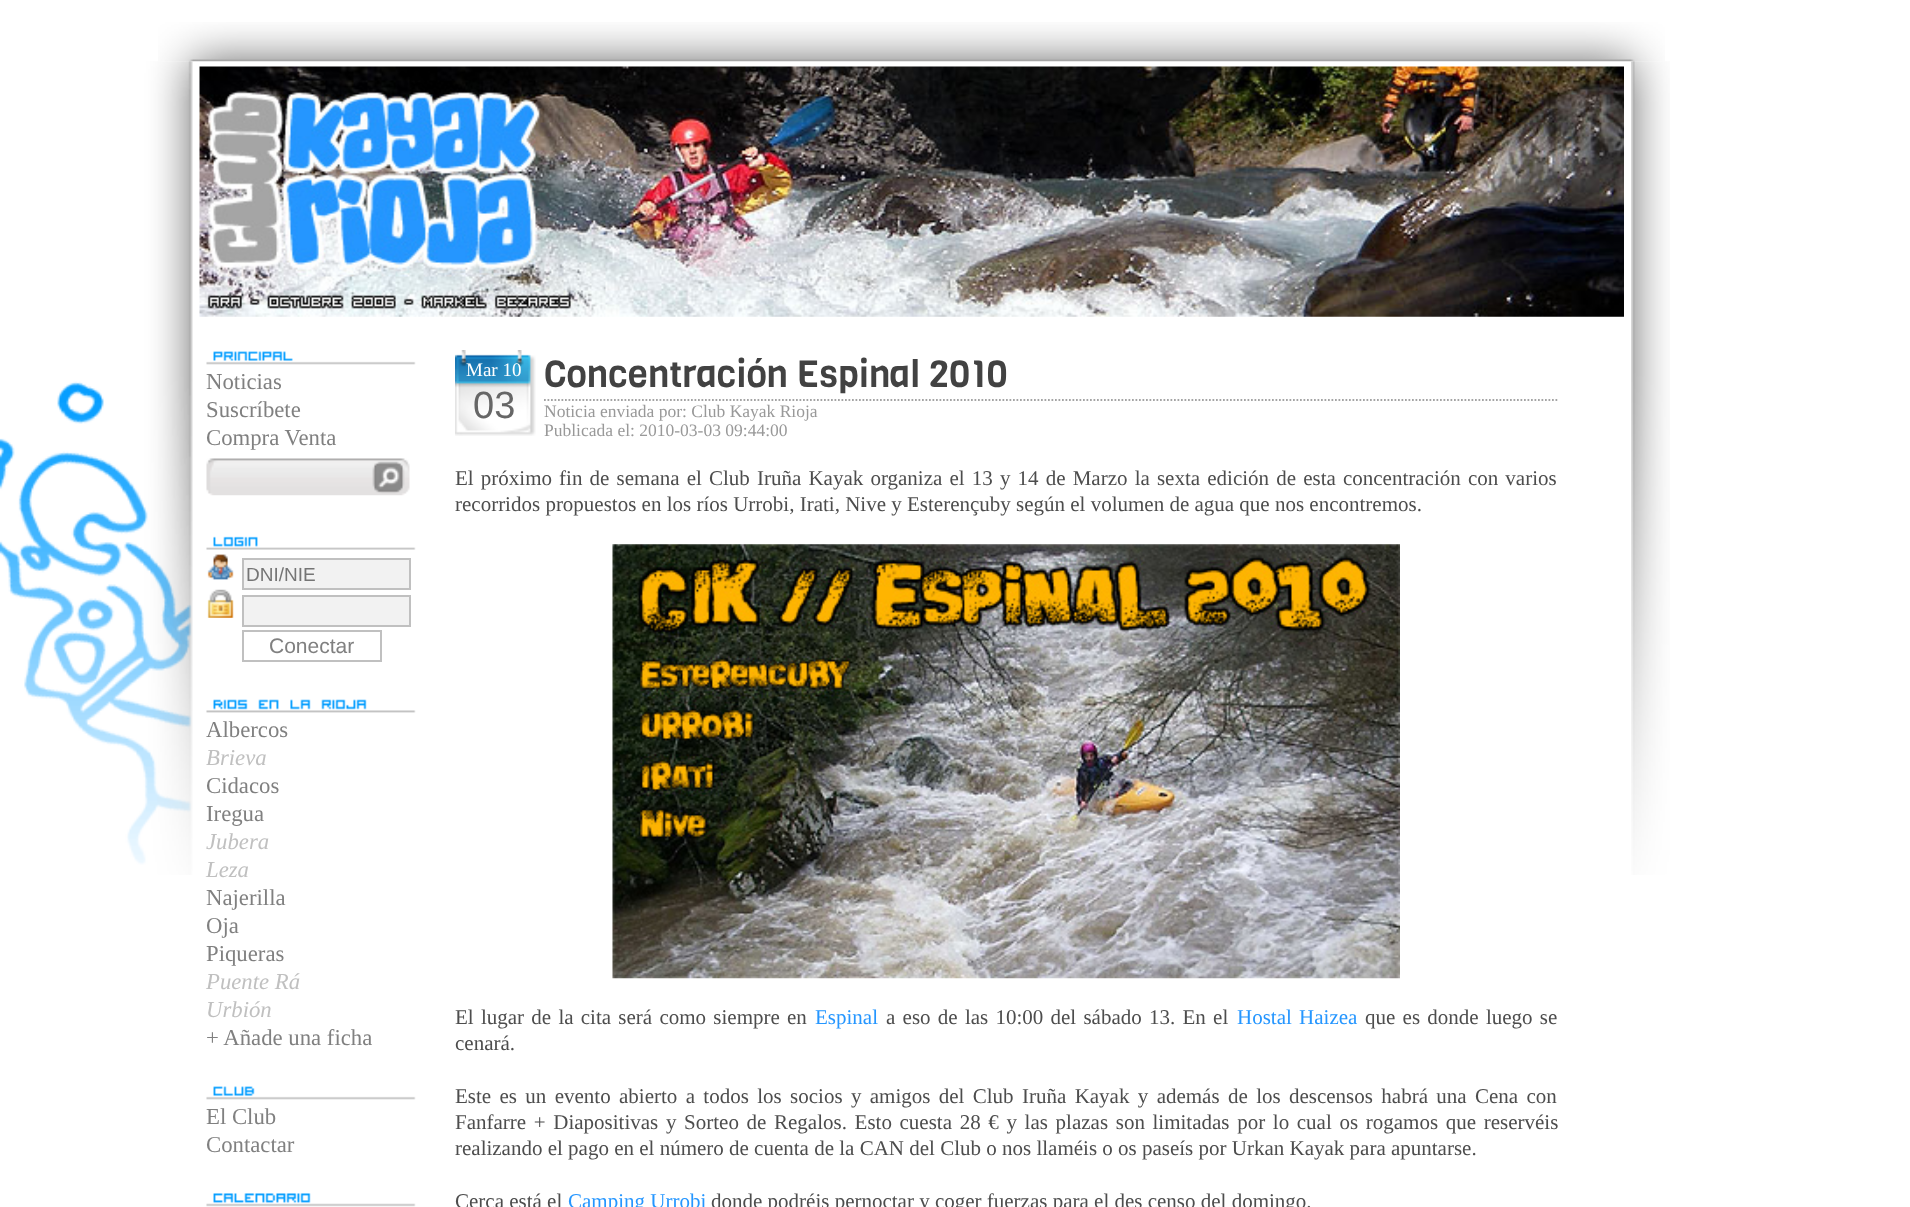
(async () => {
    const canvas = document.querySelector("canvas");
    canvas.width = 1910;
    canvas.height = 1207;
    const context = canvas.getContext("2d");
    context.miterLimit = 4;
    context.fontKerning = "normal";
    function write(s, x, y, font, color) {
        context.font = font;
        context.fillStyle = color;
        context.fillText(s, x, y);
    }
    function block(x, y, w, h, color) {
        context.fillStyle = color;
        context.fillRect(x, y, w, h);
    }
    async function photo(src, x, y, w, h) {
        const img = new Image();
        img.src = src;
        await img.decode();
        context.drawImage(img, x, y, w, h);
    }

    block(0, 0, 1910, 1207, "rgb(255, 255, 255)");
    await photo("media/1.png", 158, 22, 1507, 40);
    await photo("media/2.png", 0, 61, 193, 814);
    await photo("media/3.png", 199, 66, 1425, 251);
    await photo("media/4.png", 206, 351, 210, 14);
    write("Noticias", 206, 389, "22.75px Liberation Serif", "rgb(128, 128, 128)");
    write("Suscríbete", 206, 417, "22.75px Liberation Serif", "rgb(128, 128, 128)");
    write("Compra Venta", 206, 445, "22.75px Liberation Serif", "rgb(128, 128, 128)");
    await photo("media/5.png", 206, 458, 204, 38);
    await photo("media/6.png", 206, 536, 210, 14);
    await photo("media/7.png", 207, 554, 27, 26);
    context.fillStyle = "rgb(242, 242, 242)";
    context.beginPath();
    context.rect(243, 559, 167, 30);
    context.fill();
    context.strokeStyle = "rgb(192, 192, 192)";
    context.lineWidth = 2;
    context.stroke();
    write("DNI/NIE", 246, 581, "19px Liberation Sans", "rgb(117, 117, 117)");
    await photo("media/8.png", 207, 589, 27, 29);
    context.fillStyle = "rgb(242, 242, 242)";
    context.beginPath();
    context.rect(243, 596, 167, 30);
    context.fill();
    context.stroke();
    context.strokeRect(243, 631, 138, 30);
    write("Conectar", 269, 653, "21px Liberation Sans", "rgb(128, 128, 128)");
    await photo("media/9.png", 206, 699, 210, 14);
    write("Albercos", 206, 737, "22.75px Liberation Serif", "rgb(128, 128, 128)");
    write("Brieva", 206, 765, "italic 22.75px Liberation Serif", "rgb(192, 192, 192)");
    write("Cidacos", 206, 793, "22.75px Liberation Serif", "rgb(128, 128, 128)");
    write("Iregua", 206, 821, "22.75px Liberation Serif", "rgb(128, 128, 128)");
    write("Jubera", 206, 849, "italic 22.75px Liberation Serif", "rgb(192, 192, 192)");
    write("Leza", 206, 877, "italic 22.75px Liberation Serif", "rgb(192, 192, 192)");
    write("Najerilla", 206, 905, "22.75px Liberation Serif", "rgb(128, 128, 128)");
    write("Oja", 206, 933, "22.75px Liberation Serif", "rgb(128, 128, 128)");
    write("Piqueras", 206, 961, "22.75px Liberation Serif", "rgb(128, 128, 128)");
    write("Puente Rá", 206, 989, "italic 22.75px Liberation Serif", "rgb(192, 192, 192)");
    write("Urbión", 206, 1017, "italic 22.75px Liberation Serif", "rgb(192, 192, 192)");
    write("+ Añade una ficha", 206, 1045, "22.75px Liberation Serif", "rgb(128, 128, 128)");
    await photo("media/10.png", 206, 1086, 210, 14);
    write("El Club", 206, 1124, "22.75px Liberation Serif", "rgb(128, 128, 128)");
    write("Contactar", 206, 1152, "22.75px Liberation Serif", "rgb(128, 128, 128)");
    await photo("media/11.png", 206, 1193, 210, 14);
    await photo("media/12.png", 455, 350, 81, 86);
    write("Mar 10", 466, 376, "19px Liberation Serif", "rgb(255, 255, 255)");
    write("03", 473, 418, "38px Liberation Sans", "rgb(102, 102, 102)");
    write("Concentración Espinal 2010", 544, 387, "37.25px Viga", "rgb(66, 66, 66)");
    context.beginPath();
    context.moveTo(544, 400);
    context.lineTo(1557.5, 400);
    context.strokeStyle = "rgb(164, 164, 164)";
    context.lineWidth = 1.8;
    context.setLineDash([1.75, 1.75]);
    context.stroke();
    write("Noticia enviada por: Club Kayak Rioja", 544, 417, "17.5px Liberation Serif", "rgb(153, 153, 153)");
    write("Publicada el: 2010-03-03 09:44:00", 544, 436, "17.5px Liberation Serif", "rgb(153, 153, 153)");
    context.wordSpacing = "1.9px";
    write("El próximo fin de semana el Club Iruña Kayak organiza el 13 y 14 de Marzo la sexta edición de esta concentración con varios", 455, 485, "21px Liberation Serif", "rgb(77, 77, 77)");
    context.wordSpacing = "0px";
    write("recorridos propuestos en los ríos Urrobi, Irati, Nive y Esterençuby según el volumen de agua que nos encontremos.", 455, 511, "21px Liberation Serif", "rgb(77, 77, 77)");
    await photo("media/13.png", 612, 544, 788, 435);
    context.wordSpacing = "2px";
    write("El lugar de la cita será como siempre en", 455, 1024, "21px Liberation Serif", "rgb(77, 77, 77)");
    context.wordSpacing = "0px";
    write("Espinal", 815, 1024, "21px Liberation Serif", "rgb(37, 150, 255)");
    context.wordSpacing = "2px";
    write("a eso de las 10:00 del sábado 13. En el", 886, 1024, "21px Liberation Serif", "rgb(77, 77, 77)");
    write("Hostal Haizea", 1237, 1024, "21px Liberation Serif", "rgb(37, 150, 255)");
    write("que es donde luego se", 1365, 1024, "21px Liberation Serif", "rgb(77, 77, 77)");
    context.wordSpacing = "0px";
    write("cenará.", 455, 1050, "21px Liberation Serif", "rgb(77, 77, 77)");
    context.wordSpacing = "3.1px";
    write("Este es un evento abierto a todos los socios y amigos del Club Iruña Kayak y además de los descensos habrá una Cena con", 455, 1103, "21px Liberation Serif", "rgb(77, 77, 77)");
    context.wordSpacing = "2.4px";
    write("Fanfarre + Diapositivas y Sorteo de Regalos. Esto cuesta 28 € y las plazas son limitadas por lo cual os rogamos que reservéis", 455, 1129, "21px Liberation Serif", "rgb(77, 77, 77)");
    context.wordSpacing = "0px";
    write("realizando el pago en el número de cuenta de la CAN del Club o nos llaméis o os paseís por Urkan Kayak para apuntarse.", 455, 1155, "21px Liberation Serif", "rgb(77, 77, 77)");
    write("Cerca está el", 455, 1208, "21px Liberation Serif", "rgb(77, 77, 77)");
    write("Camping Urrobi", 568, 1208, "21px Liberation Serif", "rgb(37, 150, 255)");
    write("donde podréis pernoctar y coger fuerzas para el des censo del domingo.", 711, 1208, "21px Liberation Serif", "rgb(77, 77, 77)");
    await photo("media/14.png", 1631, 61, 39, 814);
})();
